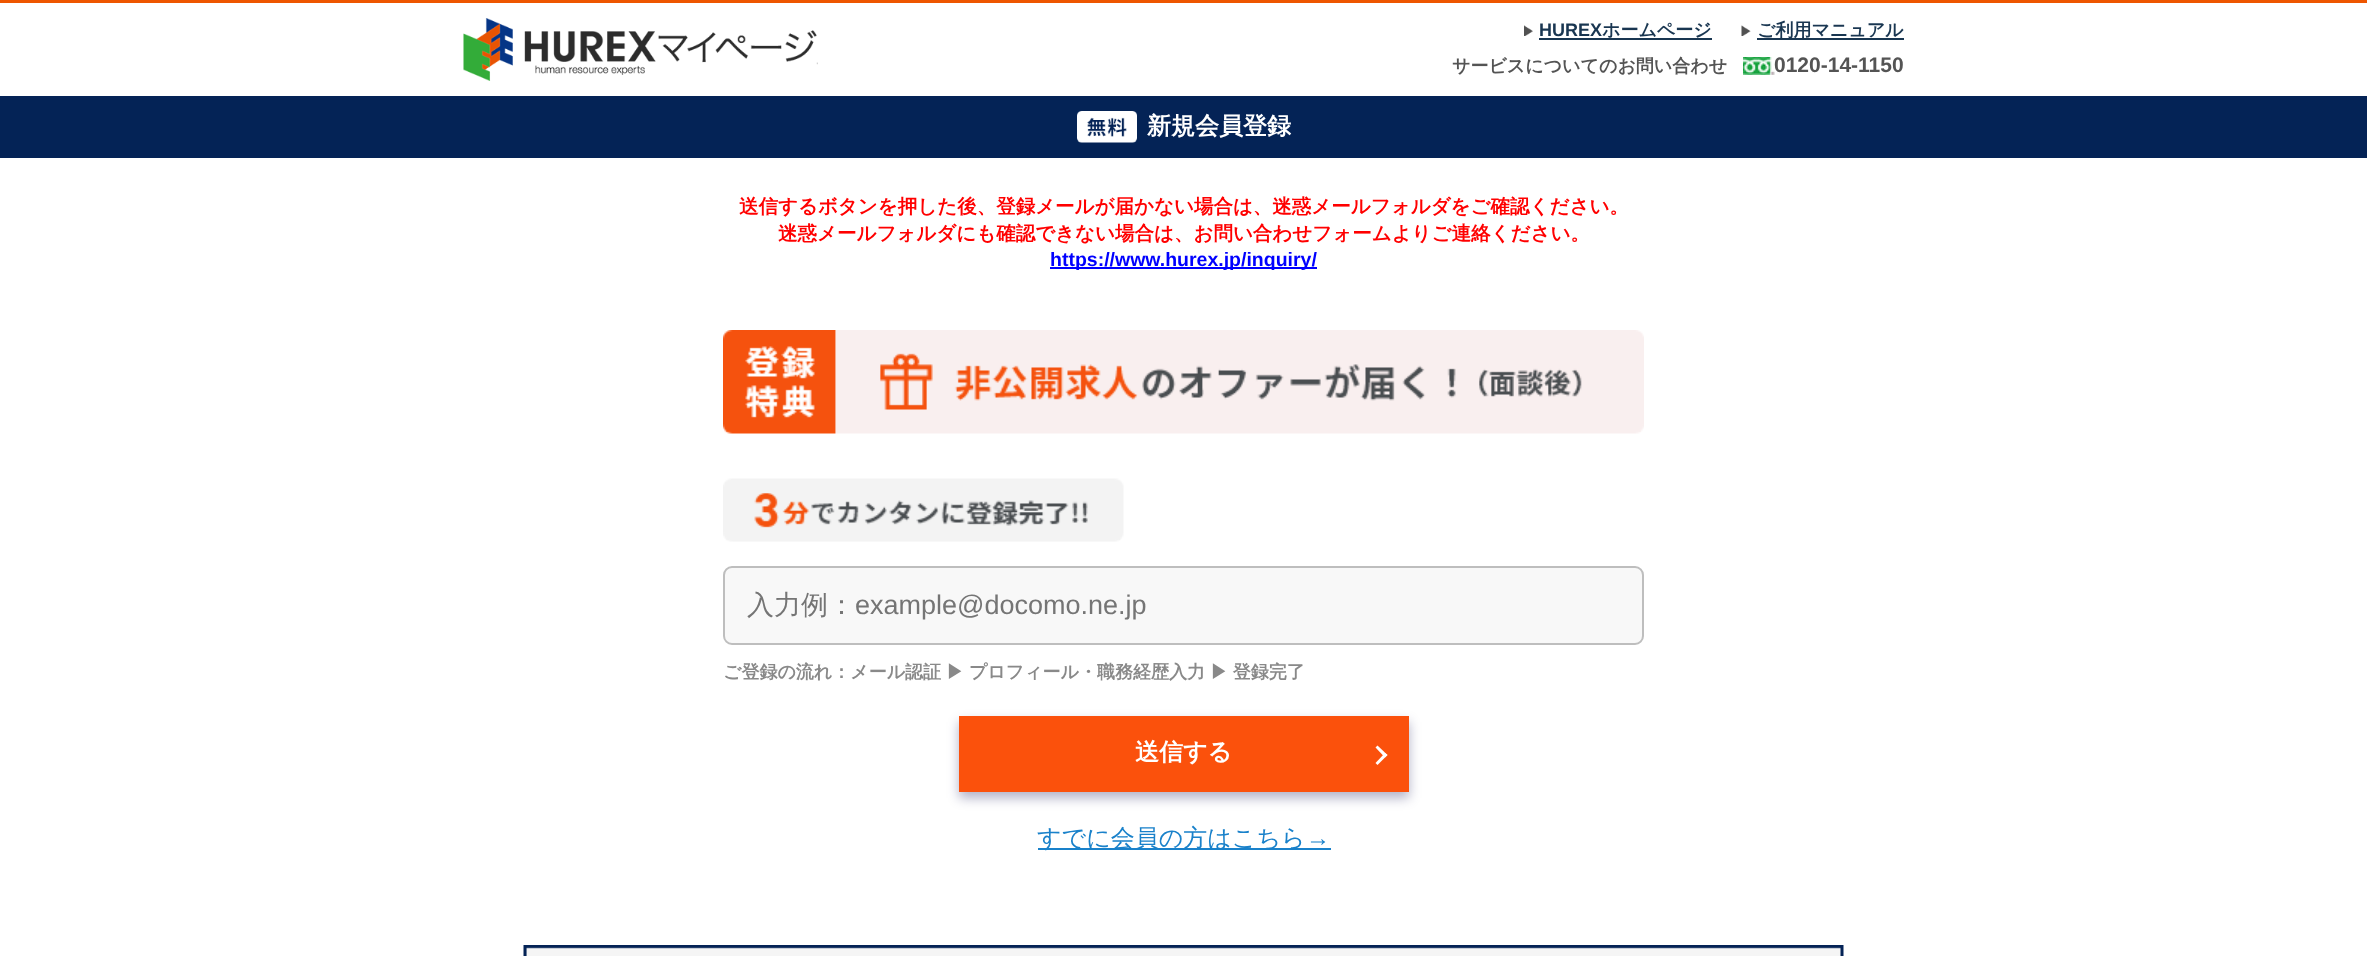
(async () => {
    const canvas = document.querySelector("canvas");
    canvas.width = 2367;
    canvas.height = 956;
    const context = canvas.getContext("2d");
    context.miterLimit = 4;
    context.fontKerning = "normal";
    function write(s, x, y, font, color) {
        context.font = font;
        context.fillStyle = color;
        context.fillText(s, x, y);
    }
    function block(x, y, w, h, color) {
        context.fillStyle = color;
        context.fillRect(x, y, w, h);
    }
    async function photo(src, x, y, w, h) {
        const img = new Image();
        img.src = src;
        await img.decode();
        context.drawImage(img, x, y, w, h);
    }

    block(0, 0, 2367, 956, "rgb(255, 255, 255)");
    block(0, 0, 2367, 3, "rgb(238, 86, 0)");
    await photo("media/1.png", 463, 18, 355, 63);
    await photo("media/2.png", 1524, 25, 9, 11);
    write("HUREX", 1539, 36, "bold 18px Liberation Sans", "rgb(25, 54, 81)");
    write("ホームページ", 1602, 36, "bold 18px WenQuanYi Zen Hei", "rgb(25, 54, 81)");
    block(1539, 38, 173, 2, "rgb(25, 54, 81)");
    await photo("media/3.png", 1741, 25, 10, 11);
    block(1757, 38, 147, 2, "rgb(25, 54, 81)");
    write("ご利用マニュアル", 1757, 36, "bold 18px WenQuanYi Zen Hei", "rgb(25, 54, 81)");
    write("サービスについてのお問い合わせ", 1452, 72, "bold 18px WenQuanYi Zen Hei", "rgb(84, 84, 84)");
    await photo("media/4.png", 1743, 57, 32, 18);
    write("0120-14-1150", 1774, 72, "bold 21px Liberation Sans", "rgb(84, 84, 84)");
    block(0, 96, 2367, 62, "rgb(4, 35, 86)");
    await photo("media/5.png", 1077, 111, 60, 32);
    write("新規会員登録", 1147, 134, "bold 24px WenQuanYi Zen Hei", "rgb(255, 255, 255)");
    write("送信するボタンを押した後、登録メールが届かない場合は、迷惑メールフォルダをご確認ください。", 739, 213, "bold 19.5px WenQuanYi Zen Hei", "rgb(255, 0, 0)");
    write("迷惑メールフォルダにも確認できない場合は、お問い合わせフォームよりご連絡ください。", 778, 240, "bold 19.5px WenQuanYi Zen Hei", "rgb(255, 0, 0)");
    block(1050, 267, 267, 2, "rgb(0, 0, 255)");
    write("https://www.hurex.jp/inquiry/", 1050, 266, "bold 19.5px Liberation Sans", "rgb(0, 0, 255)");
    await photo("media/6.png", 723, 330, 921, 104);
    await photo("media/7.png", 723, 478, 401, 64);
    context.fillStyle = "rgb(248, 248, 248)";
    context.beginPath();
    context.roundRect(724, 567, 919, 77, 8);
    context.fill();
    context.strokeStyle = "rgb(190, 190, 190)";
    context.lineWidth = 2;
    context.stroke();
    write("入力例：", 747, 614, "500 27px WenQuanYi Zen Hei", "rgb(117, 117, 117)");
    write("example@docomo.ne.jp", 855, 614, "27px Liberation Sans", "rgb(117, 117, 117)");
    context.wordSpacing = "-0.5px";
    write("ご登録の流れ：メール認証 ▶ プロフィール・職務経歴入力 ▶ 登録完了", 723, 678, "bold 18px WenQuanYi Zen Hei", "rgb(137, 137, 137)");
    context.fillStyle = "rgba(0, 0, 74, 0.3)";
    context.filter = "blur(6px)";
    context.beginPath();
    context.rect(959, 722, 450, 76);
    context.fill();
    context.filter = "none";
    block(959, 716, 450, 76, "rgb(251, 81, 12)");
    context.wordSpacing = "0px";
    write("送信する", 1135, 760, "bold 24px WenQuanYi Zen Hei", "rgb(255, 255, 255)");
    context.beginPath();
    context.moveTo(1377.5, 745.5);
    context.lineTo(1387.5, 755);
    context.lineTo(1385, 757.5);
    context.lineTo(1375.5, 747.5);
    context.closePath();
    context.fill();
    context.beginPath();
    context.moveTo(1385, 753);
    context.lineTo(1387.5, 755);
    context.lineTo(1377.5, 765);
    context.lineTo(1375.5, 763);
    context.closePath();
    context.fill();
    block(1038, 848, 293, 2, "rgb(25, 129, 202)");
    write("すでに会員の方はこちら", 1037, 846, "500 24px WenQuanYi Zen Hei", "rgb(25, 129, 202)");
    write("→", 1306, 846, "24px Liberation Sans", "rgb(25, 129, 202)");
    await photo("media/8.png", 523, 945, 1321, 11);
})();
